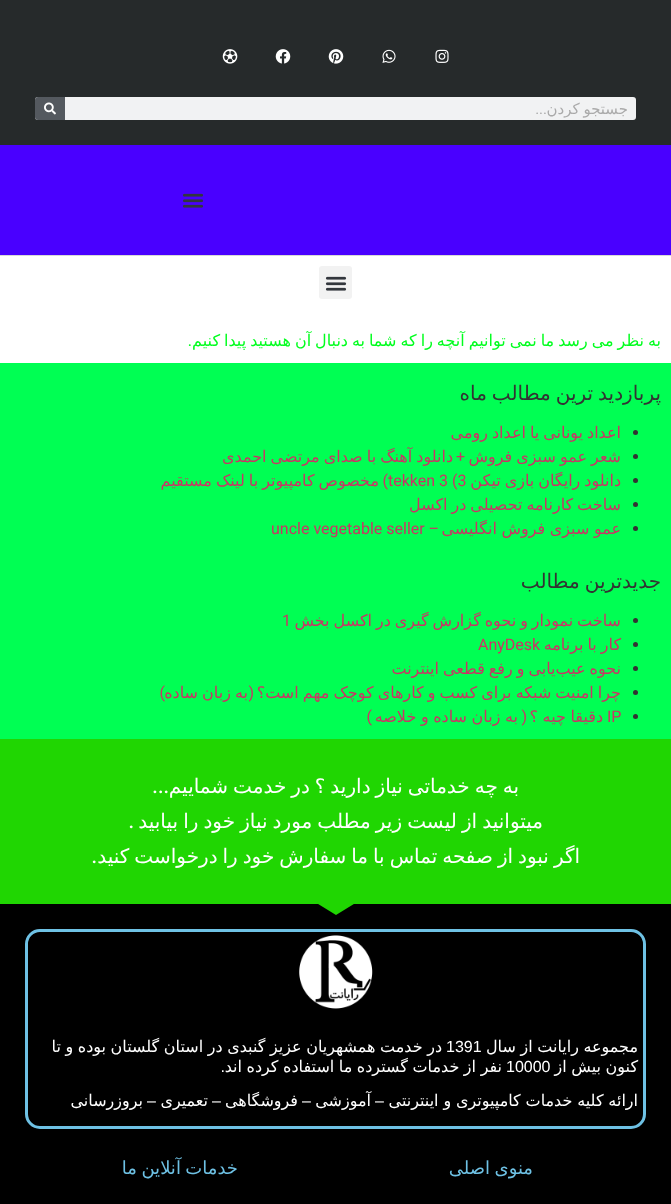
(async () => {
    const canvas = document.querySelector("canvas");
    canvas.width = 671;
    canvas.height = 1204;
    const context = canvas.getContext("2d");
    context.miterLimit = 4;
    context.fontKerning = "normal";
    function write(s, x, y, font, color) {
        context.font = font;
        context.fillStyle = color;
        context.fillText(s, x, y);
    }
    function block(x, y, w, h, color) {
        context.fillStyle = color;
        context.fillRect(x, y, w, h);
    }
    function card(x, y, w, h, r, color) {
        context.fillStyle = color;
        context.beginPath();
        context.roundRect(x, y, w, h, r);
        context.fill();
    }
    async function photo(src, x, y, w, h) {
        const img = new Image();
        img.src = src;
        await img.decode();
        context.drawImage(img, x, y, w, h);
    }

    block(0, 0, 671, 1204, "rgb(255, 255, 255)");
    block(0, 0, 671, 145, "rgb(38, 42, 43)");
    await photo("media/1.png", 435, 49, 14, 14);
    await photo("media/2.png", 382, 49, 14, 14);
    await photo("media/3.png", 328, 49, 16, 15);
    await photo("media/4.png", 275, 49, 16, 15);
    await photo("media/5.png", 222, 49, 16, 15);
    card(35, 97, 601, 23, 3, "rgb(241, 242, 243)");
    context.wordSpacing = "-1px";
    context.direction = "rtl";
    write("جستجو کردن", 628, 114, "15px DejaVu Sans", "rgb(170, 170, 170)");
    context.wordSpacing = "0px";
    write("...", 547, 114, "15px Roboto", "rgb(170, 170, 170)");
    context.fillStyle = "rgb(84, 89, 95)";
    context.beginPath();
    context.roundRect(35, 97, 30, 23, [3, 0, 0, 3]);
    context.fill();
    await photo("media/6.png", 44, 102, 12, 13);
    block(0, 145, 671, 110, "rgb(73, 0, 255)");
    block(0, 255, 671, 1, "rgb(216, 216, 216)");
    await photo("media/7.png", 182, 193, 22, 15);
    card(319, 266, 33, 33, 3, "rgb(242, 242, 242)");
    await photo("media/8.png", 325, 276, 22, 15);
    context.wordSpacing = "-1.1px";
    write("به نظر می رسد ما نمی توانیم آنچه را که شما به دنبال آن هستید پیدا کنیم", 661, 346, "16px DejaVu Sans", "rgb(0, 254, 30)");
    context.wordSpacing = "0px";
    write(".", 192, 346, "16px Roboto", "rgb(0, 254, 30)");
    block(0, 363, 671, 376, "rgb(0, 255, 83)");
    context.wordSpacing = "-1.4px";
    write("پربازدید ترین مطالب ماه", 661, 400, "20px DejaVu Sans", "rgb(51, 51, 51)");
    context.beginPath();
    context.arc(635.5, 432.5, 2.5, 0, Math.PI * 2);
    context.fill();
    context.wordSpacing = "-1.1px";
    write("اعداد یونانی یا اعداد رومی", 621, 438, "16px DejaVu Sans", "rgb(204, 51, 102)");
    context.fillStyle = "rgb(51, 51, 51)";
    context.beginPath();
    context.arc(635.5, 456.5, 2.5, 0, Math.PI * 2);
    context.fill();
    context.wordSpacing = "-1px";
    write("شعر عمو سبزی فروش", 621, 462, "16px DejaVu Sans", "rgb(204, 51, 102)");
    write("دانلود آهنگ با صدای مرتضی احمدی", 453, 462, "16px DejaVu Sans", "rgb(204, 51, 102)");
    context.wordSpacing = "0px";
    write("+", 465, 462, "16px Roboto", "rgb(204, 51, 102)");
    context.fillStyle = "rgb(51, 51, 51)";
    context.beginPath();
    context.arc(635.5, 480.5, 2.5, 0, Math.PI * 2);
    context.fill();
    context.wordSpacing = "-1.1px";
    write("دانلود رایگان بازی تیکن", 621, 486, "16px DejaVu Sans", "rgb(204, 51, 102)");
    context.wordSpacing = "0px";
    context.direction = "ltr";
    write("tekken 3 (3", 388, 486, "16px Roboto", "rgb(204, 51, 102)");
    context.direction = "rtl";
    write(")", 388, 486, "16px Roboto", "rgb(204, 51, 102)");
    context.wordSpacing = "-1px";
    write("مخصوص کامپیوتر با لینک مستقیم", 379, 486, "16px DejaVu Sans", "rgb(204, 51, 102)");
    context.fillStyle = "rgb(51, 51, 51)";
    context.beginPath();
    context.arc(635.5, 504.5, 2.5, 0, Math.PI * 2);
    context.fill();
    context.wordSpacing = "-1.1px";
    write("ساخت کارنامه تحصیلی در اکسل", 621, 510, "16px DejaVu Sans", "rgb(204, 51, 102)");
    context.fillStyle = "rgb(51, 51, 51)";
    context.beginPath();
    context.arc(635.5, 528.5, 2.5, 0, Math.PI * 2);
    context.fill();
    context.wordSpacing = "-0.5px";
    write("عمو سبزی فروش انگلیسی", 621, 534, "16px DejaVu Sans", "rgb(204, 51, 102)");
    context.wordSpacing = "0px";
    write("–", 439, 534, "16px Roboto", "rgb(204, 51, 102)");
    context.direction = "ltr";
    write("uncle vegetable seller", 271, 534, "16px Roboto", "rgb(204, 51, 102)");
    context.wordSpacing = "-1.4px";
    context.direction = "rtl";
    write("جدیدترین مطالب", 661, 588, "20px DejaVu Sans", "rgb(51, 51, 51)");
    context.beginPath();
    context.arc(635.5, 620.5, 2.5, 0, Math.PI * 2);
    context.fill();
    context.wordSpacing = "-1.1px";
    write("ساخت نمودار و نحوه گزارش گیری در اکسل بخش", 621, 626, "16px DejaVu Sans", "rgb(204, 51, 102)");
    context.wordSpacing = "0px";
    context.direction = "ltr";
    write("1", 282, 626, "16px Roboto", "rgb(204, 51, 102)");
    context.fillStyle = "rgb(51, 51, 51)";
    context.beginPath();
    context.arc(635.5, 644.5, 2.5, 0, Math.PI * 2);
    context.fill();
    context.wordSpacing = "-1.1px";
    context.direction = "rtl";
    write("کار با برنامه", 621, 650, "16px DejaVu Sans", "rgb(204, 51, 102)");
    context.wordSpacing = "0px";
    context.direction = "ltr";
    write("AnyDesk", 478, 650, "16px Roboto", "rgb(204, 51, 102)");
    context.fillStyle = "rgb(51, 51, 51)";
    context.beginPath();
    context.arc(635.5, 668.5, 2.5, 0, Math.PI * 2);
    context.fill();
    context.wordSpacing = "-1.1px";
    context.direction = "rtl";
    write("نحوه عیب‌یابی و رفع قطعی اینترنت", 621, 674, "16px DejaVu Sans", "rgb(204, 51, 102)");
    context.fillStyle = "rgb(51, 51, 51)";
    context.beginPath();
    context.arc(635.5, 692.5, 2.5, 0, Math.PI * 2);
    context.fill();
    context.wordSpacing = "-1px";
    write("چرا امنیت شبکه برای کسب‌ و کارهای کوچک مهم است؟", 621, 698, "16px DejaVu Sans", "rgb(204, 51, 102)");
    write("به زبان ساده", 248, 698, "16px DejaVu Sans", "rgb(204, 51, 102)");
    context.wordSpacing = "0px";
    write("(", 254, 698, "16px Roboto", "rgb(204, 51, 102)");
    write(")", 165, 698, "16px Roboto", "rgb(204, 51, 102)");
    context.fillStyle = "rgb(51, 51, 51)";
    context.beginPath();
    context.arc(635.5, 716.5, 2.5, 0, Math.PI * 2);
    context.fill();
    context.direction = "ltr";
    write("IP", 607, 722, "16px Roboto", "rgb(204, 51, 102)");
    context.wordSpacing = "-0.5px";
    context.direction = "rtl";
    write("دقیقا چیه ؟", 603, 722, "16px DejaVu Sans", "rgb(204, 51, 102)");
    context.wordSpacing = "0px";
    write("(", 527, 722, "16px Roboto", "rgb(204, 51, 102)");
    context.wordSpacing = "-0.5px";
    write("به زبان ساده و خلاصه", 518, 722, "16px DejaVu Sans", "rgb(204, 51, 102)");
    context.wordSpacing = "0px";
    write(")", 372, 722, "16px Roboto", "rgb(204, 51, 102)");
    block(0, 739, 671, 165, "rgb(32, 214, 2)");
    context.wordSpacing = "-1.4px";
    write("به چه خدماتی نیاز دارید ؟ در خدمت شماییم", 519, 793, "20px DejaVu Sans", "rgb(255, 255, 255)");
    context.wordSpacing = "0px";
    write("...", 169, 793, "500 20px Roboto", "rgb(255, 255, 255)");
    context.wordSpacing = "-1.25px";
    write("میتوانید از لیست زیر مطلب مورد نیاز خود را بیابید", 543, 828, "20px DejaVu Sans", "rgb(255, 255, 255)");
    context.wordSpacing = "0px";
    write(".", 134, 828, "500 20px Roboto", "rgb(255, 255, 255)");
    context.wordSpacing = "-1.4px";
    write("اگر نبود از صفحه تماس با ما سفارش خود را درخواست کنید", 580, 863, "20px DejaVu Sans", "rgb(255, 255, 255)");
    context.wordSpacing = "0px";
    write(".", 97, 863, "500 20px Roboto", "rgb(255, 255, 255)");
    block(0, 904, 671, 300, "rgb(0, 0, 0)");
    context.fillStyle = "rgb(32, 214, 2)";
    context.beginPath();
    context.moveTo(336, 915);
    context.lineTo(316.5, 903);
    context.lineTo(355.5, 903);
    context.closePath();
    context.fill();
    context.beginPath();
    context.roundRect(26.5, 930.5, 618, 197, 13.5);
    context.strokeStyle = "rgb(110, 193, 228)";
    context.lineWidth = 3;
    context.stroke();
    await photo("media/9.png", 299, 935, 74, 74);
    context.wordSpacing = "-0.5px";
    write("مجموعه رایانت از سال", 638, 1052, "16px DejaVu Sans", "rgb(255, 255, 255)");
    write("در خدمت همشهریان عزیز گنبدی در استان گلستان بوده و تا", 442, 1052, "16px DejaVu Sans", "rgb(255, 255, 255)");
    context.wordSpacing = "0px";
    context.direction = "ltr";
    write("1391", 446, 1052, "16px Liberation Sans", "rgb(255, 255, 255)");
    context.wordSpacing = "-0.5px";
    context.direction = "rtl";
    write("کنون بیش از", 638, 1072, "16px DejaVu Sans", "rgb(255, 255, 255)");
    context.wordSpacing = "0px";
    context.direction = "ltr";
    write("10000", 506, 1072, "16px Liberation Sans", "rgb(255, 255, 255)");
    context.wordSpacing = "-0.5px";
    context.direction = "rtl";
    write("نفر از خدمات گسترده ما استفاده کرده اند", 502, 1072, "16px DejaVu Sans", "rgb(255, 255, 255)");
    context.wordSpacing = "0px";
    write(".", 225, 1072, "16px Liberation Sans", "rgb(255, 255, 255)");
    context.wordSpacing = "-0.25px";
    write("ارائه کلیه خدمات کامپیوتری و اینترنتی", 638, 1106, "16px DejaVu Sans", "rgb(255, 255, 255)");
    context.wordSpacing = "0px";
    write("–", 384, 1106, "16px Liberation Sans", "rgb(255, 255, 255)");
    write("آموزشی", 371, 1106, "16px DejaVu Sans", "rgb(255, 255, 255)");
    write("–", 311, 1106, "16px Liberation Sans", "rgb(255, 255, 255)");
    write("فروشگاهی", 298, 1106, "16px DejaVu Sans", "rgb(255, 255, 255)");
    write("–", 221, 1106, "16px Liberation Sans", "rgb(255, 255, 255)");
    write("تعمیری", 208, 1106, "16px DejaVu Sans", "rgb(255, 255, 255)");
    write("–", 156, 1106, "16px Liberation Sans", "rgb(255, 255, 255)");
    write("بروزرسانی", 143, 1106, "16px DejaVu Sans", "rgb(255, 255, 255)");
    context.wordSpacing = "-1.25px";
    write("منوی اصلی", 533, 1174, "18px DejaVu Sans", "rgb(110, 193, 228)");
    write("خدمات آنلاین ما", 238, 1174, "18px DejaVu Sans", "rgb(110, 193, 228)");
})();
